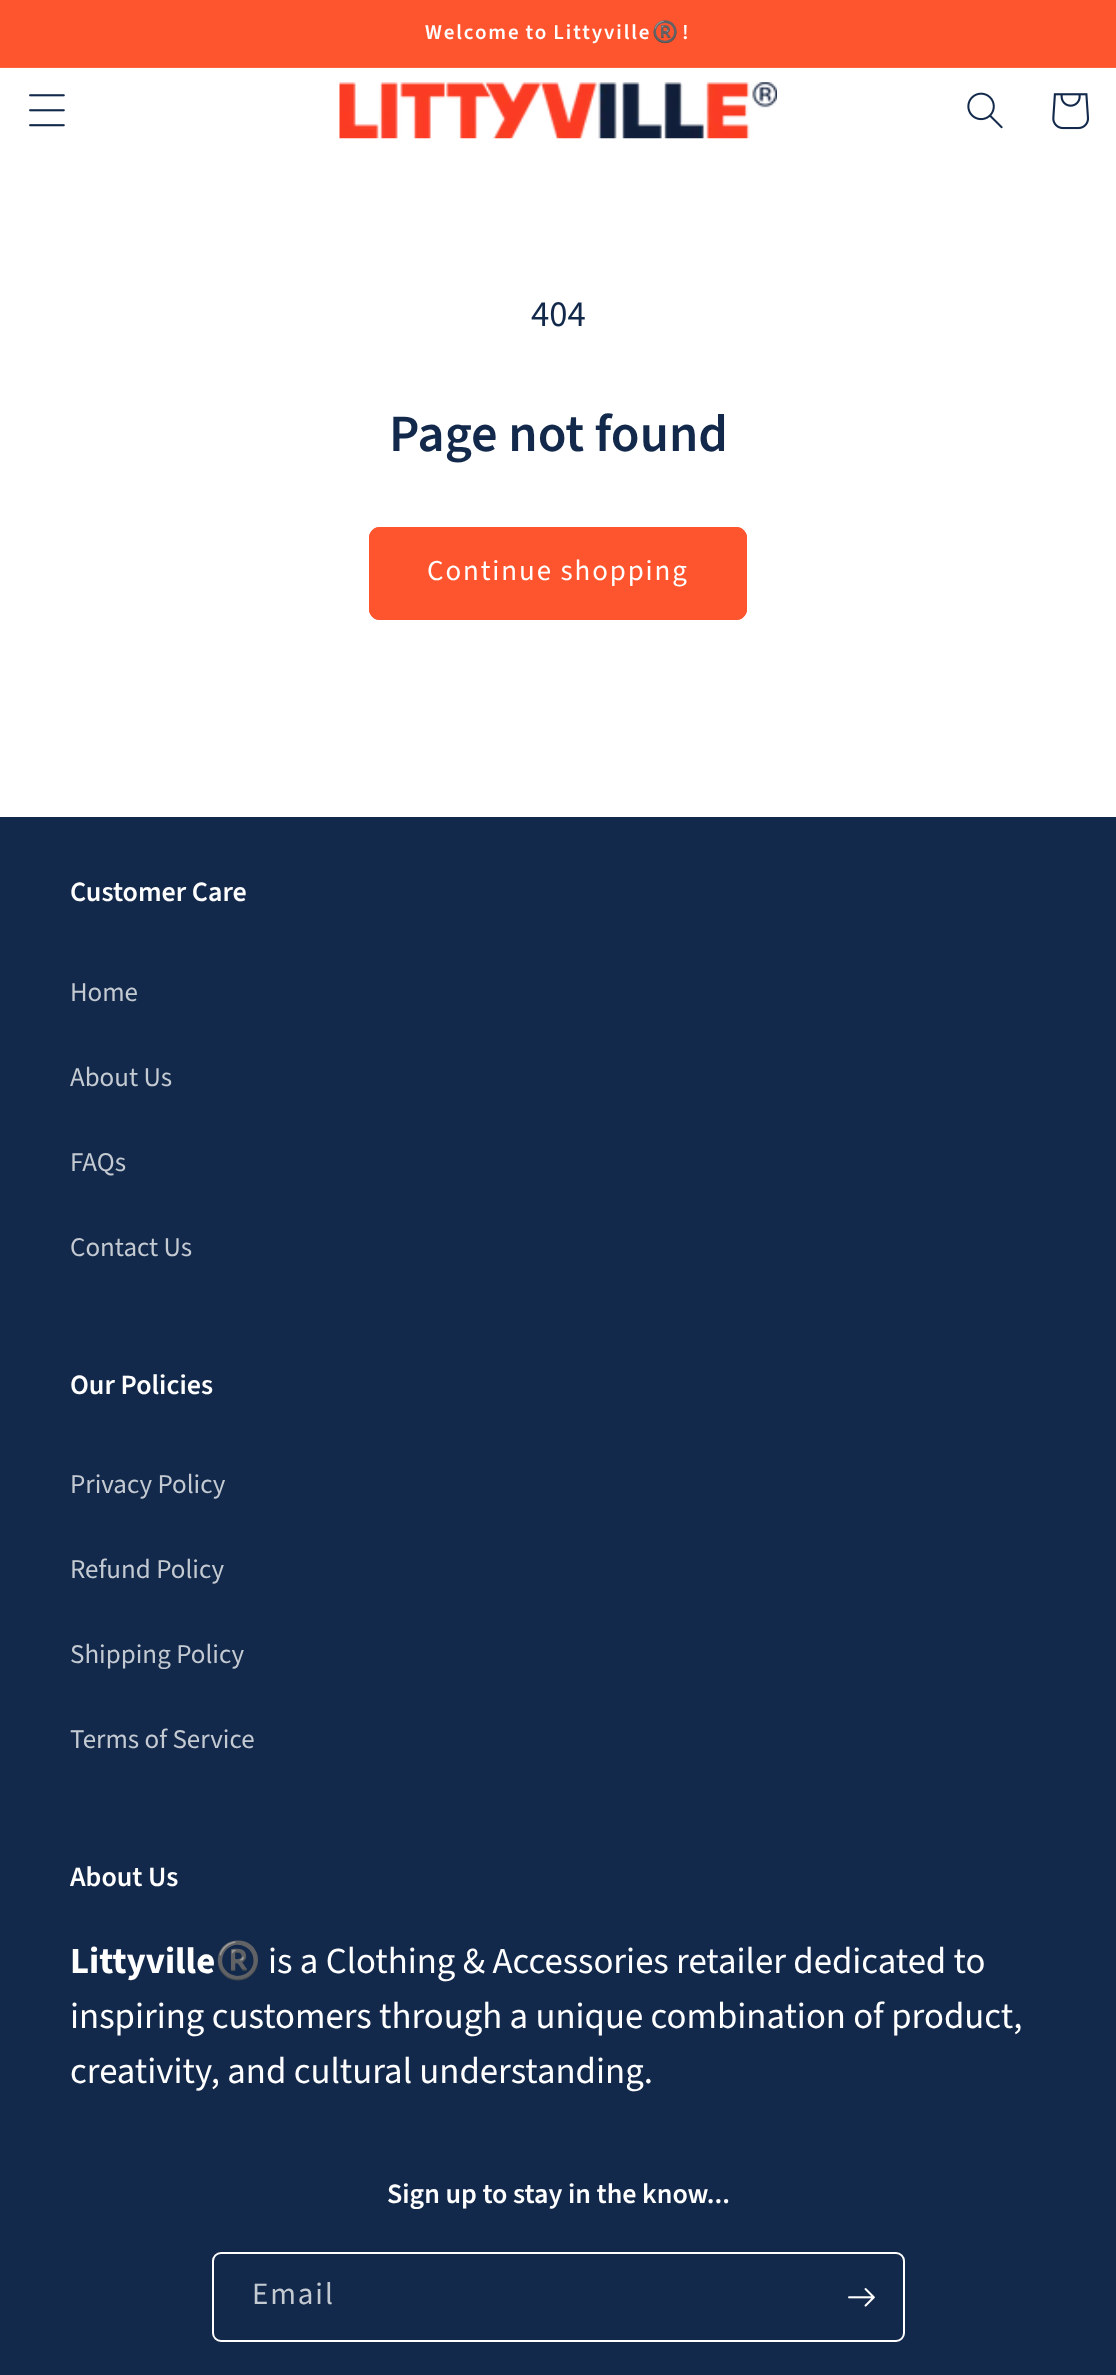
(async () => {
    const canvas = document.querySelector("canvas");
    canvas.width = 1116;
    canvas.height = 2375;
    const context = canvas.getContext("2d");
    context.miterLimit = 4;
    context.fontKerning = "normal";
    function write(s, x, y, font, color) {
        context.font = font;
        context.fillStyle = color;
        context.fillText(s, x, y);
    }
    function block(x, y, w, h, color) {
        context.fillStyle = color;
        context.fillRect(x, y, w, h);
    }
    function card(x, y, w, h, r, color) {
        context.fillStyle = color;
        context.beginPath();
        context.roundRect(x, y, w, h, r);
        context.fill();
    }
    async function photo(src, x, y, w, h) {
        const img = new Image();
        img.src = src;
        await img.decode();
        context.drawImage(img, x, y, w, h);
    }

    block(0, 0, 1116, 2375, "rgb(255, 255, 255)");
    block(0, 0, 1116, 67, "rgb(255, 85, 46)");
    block(0, 67, 1116, 1, "rgb(255, 99, 63)");
    context.letterSpacing = "1.9px";
    context.wordSpacing = "-1px";
    write("Welcome to Littyville", 425, 39, "600 21px Source Sans Pro", "rgb(255, 255, 255)");
    context.wordSpacing = "0px";
    write("®️", 652, 39, "bold 21px Noto Color Emoji", "rgb(255, 255, 255)");
    write("!", 682, 39, "600 21px Source Sans Pro", "rgb(255, 255, 255)");
    await photo("media/1.png", 29, 94, 36, 33);
    await photo("media/2.png", 339, 82, 438, 57);
    await photo("media/3.png", 967, 92, 36, 37);
    await photo("media/4.png", 1052, 93, 37, 37);
    context.letterSpacing = "0px";
    write("404", 531, 326, "36.75px Source Sans Pro", "rgb(19, 41, 75)");
    write("Page not found", 389, 451, "600 52.5px Source Sans Pro", "rgb(19, 41, 75)");
    card(369, 527, 378, 93, 11, "rgb(255, 85, 46)");
    context.beginPath();
    context.roundRect(371, 529, 374, 89, 9);
    context.strokeStyle = "rgb(255, 85, 46)";
    context.lineWidth = 4;
    context.stroke();
    context.letterSpacing = "1.9px";
    write("Continue shopping", 427, 580, "28.9px Source Sans Pro", "rgb(255, 255, 255)");
    block(0, 817, 1116, 1558, "rgb(19, 41, 75)");
    context.letterSpacing = "0px";
    write("Customer Care", 70, 901, "600 28px Source Sans Pro", "rgb(255, 255, 255)");
    write("Home", 70, 1001, "27px Source Sans Pro", "rgb(196, 202, 210)");
    write("About Us", 70, 1086, "27px Source Sans Pro", "rgb(196, 202, 210)");
    write("FAQs", 70, 1171, "27px Source Sans Pro", "rgb(196, 202, 210)");
    write("Contact Us", 70, 1256, "27px Source Sans Pro", "rgb(196, 202, 210)");
    write("Our Policies", 70, 1394, "600 28px Source Sans Pro", "rgb(255, 255, 255)");
    write("Privacy Policy", 70, 1493, "27px Source Sans Pro", "rgb(196, 202, 210)");
    write("Refund Policy", 70, 1578, "27px Source Sans Pro", "rgb(196, 202, 210)");
    write("Shipping Policy", 70, 1663, "27px Source Sans Pro", "rgb(196, 202, 210)");
    write("Terms of Service", 70, 1748, "27px Source Sans Pro", "rgb(196, 202, 210)");
    write("About Us", 70, 1886, "600 28px Source Sans Pro", "rgb(255, 255, 255)");
    write("Littyville", 70, 1973, "bold 36.75px Source Sans Pro", "rgb(255, 255, 255)");
    write("®️", 215, 1973, "bold 36.75px Noto Color Emoji", "rgb(255, 255, 255)");
    write("is a Clothing & Accessories retailer dedicated to", 268, 1973, "36.75px Source Sans Pro", "rgb(255, 255, 255)");
    write("inspiring customers through a unique combination of product,", 70, 2028, "36.75px Source Sans Pro", "rgb(255, 255, 255)");
    write("creativity, and cultural understanding.", 70, 2083, "36.75px Source Sans Pro", "rgb(255, 255, 255)");
    write("Sign up to stay in the know...", 387, 2203, "600 28px Source Sans Pro", "rgb(255, 255, 255)");
    context.beginPath();
    context.roundRect(213, 2253, 691, 88, 8);
    context.strokeStyle = "rgb(255, 255, 255)";
    context.lineWidth = 2;
    context.stroke();
    context.letterSpacing = "1.9px";
    write("Email", 252, 2304, "31px Source Sans Pro", "rgb(196, 202, 210)");
    await photo("media/5.png", 848, 2288, 27, 19);
})();
